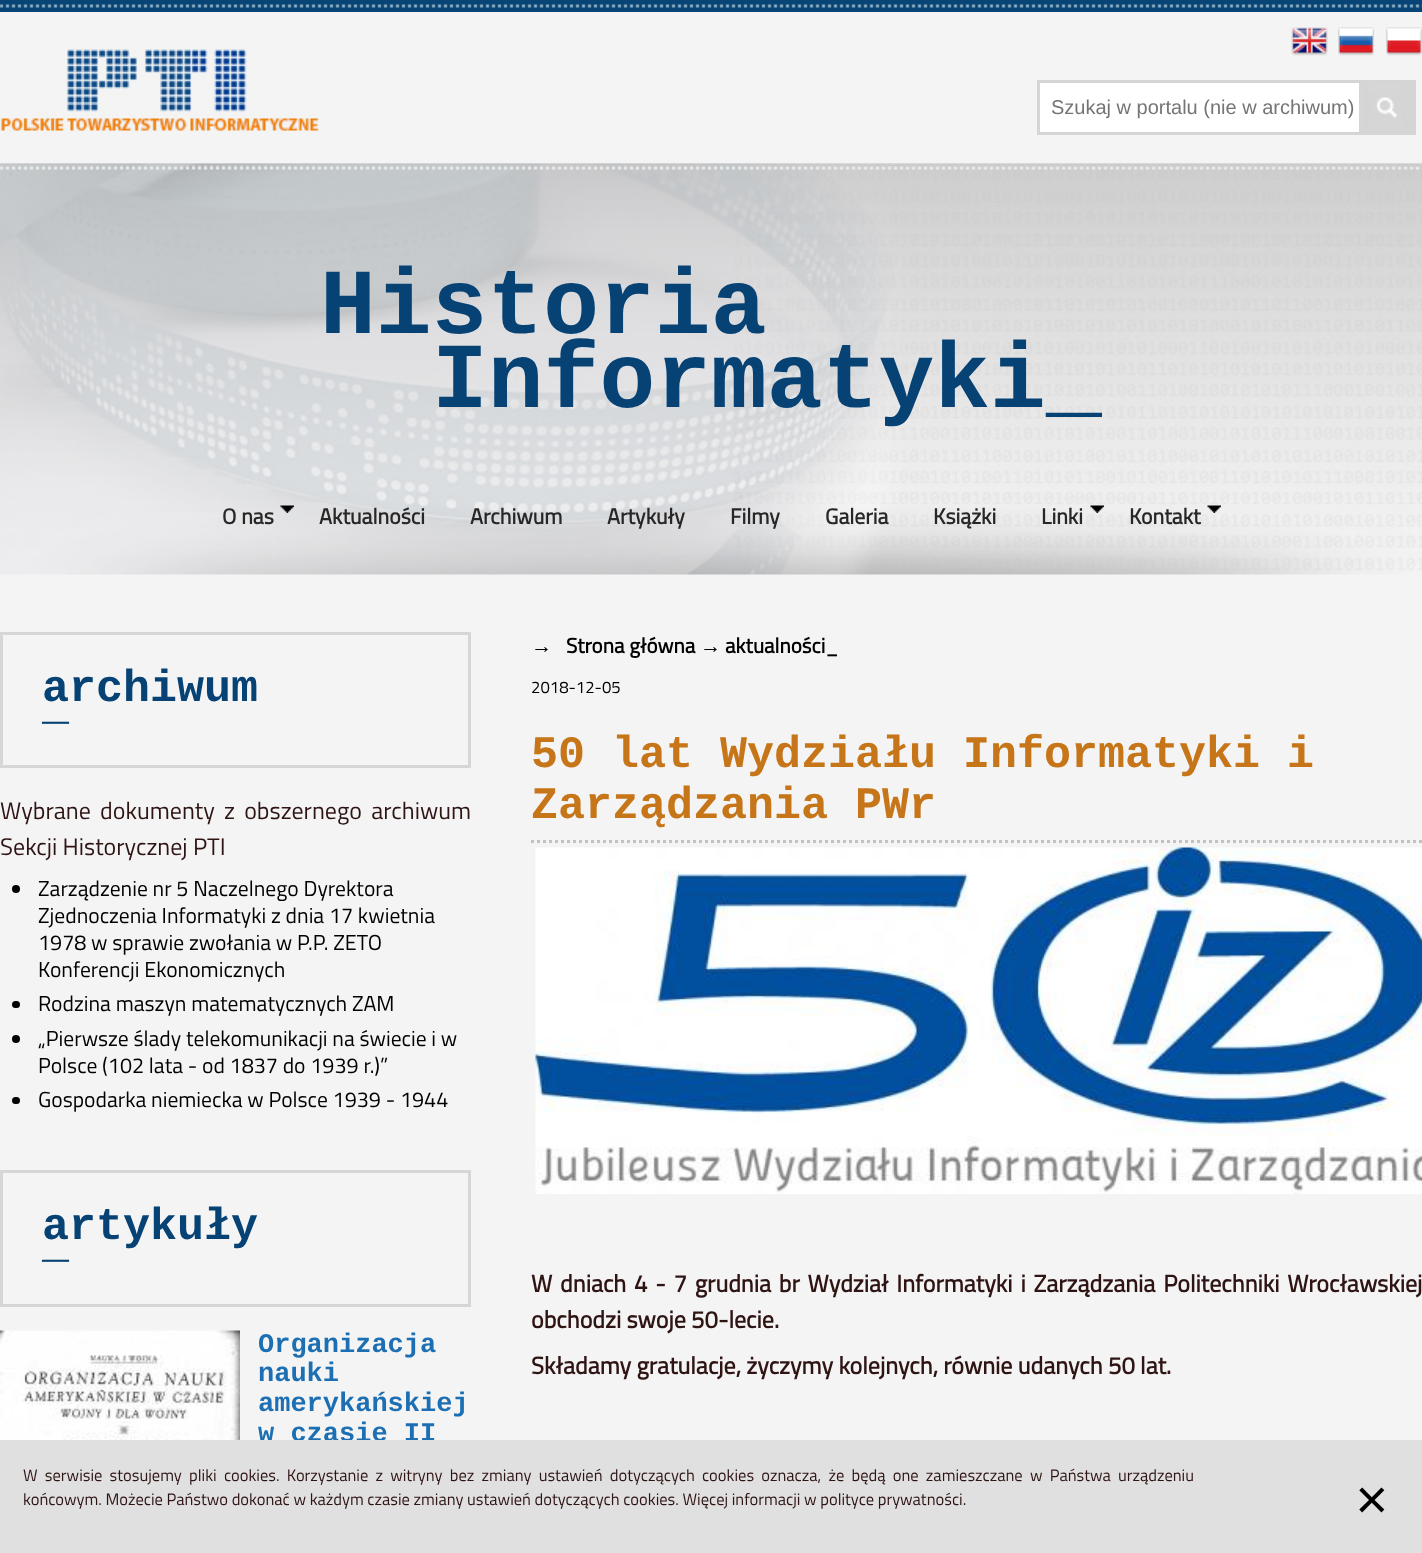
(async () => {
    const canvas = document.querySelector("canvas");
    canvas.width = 1422;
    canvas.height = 1553;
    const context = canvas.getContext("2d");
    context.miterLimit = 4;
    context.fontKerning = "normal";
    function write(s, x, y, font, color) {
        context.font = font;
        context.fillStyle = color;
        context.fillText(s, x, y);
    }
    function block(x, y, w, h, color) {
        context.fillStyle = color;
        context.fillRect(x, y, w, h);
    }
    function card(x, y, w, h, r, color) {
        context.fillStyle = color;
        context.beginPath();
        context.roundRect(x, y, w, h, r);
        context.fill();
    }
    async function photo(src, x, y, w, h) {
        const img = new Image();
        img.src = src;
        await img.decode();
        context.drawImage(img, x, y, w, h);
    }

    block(0, 0, 1422, 1553, "rgb(244, 244, 244)");
    await photo("media/1.png", 0, 0, 1422, 12);
    await photo("media/2.png", 1, 49, 318, 83);
    await photo("media/3.png", 1291, 27, 37, 29);
    await photo("media/4.png", 1338, 27, 36, 29);
    await photo("media/5.png", 1386, 27, 36, 29);
    context.fillStyle = "rgb(255, 255, 255)";
    context.beginPath();
    context.rect(1038.5, 81.5, 322, 52);
    context.fill();
    context.strokeStyle = "rgb(213, 213, 213)";
    context.lineWidth = 3;
    context.stroke();
    write("Szukaj w portalu (nie w archiwum)", 1051, 114, "20px Liberation Sans", "rgb(117, 117, 117)");
    await photo("media/6.png", 1365, 83, 48, 49);
    context.strokeRect(1363.5, 81.5, 51, 52);
    await photo("media/7.png", 0, 163, 1422, 1);
    await photo("media/9.png", 0, 163, 1422, 412);
    await photo("media/8.png", 0, 165, 1422, 5);
    write("Historia", 320, 333, "bold 93px Liberation Mono", "rgb(6, 66, 116)");
    write("Informatyki_", 432, 407, "bold 93px Liberation Mono", "rgb(6, 66, 116)");
    await photo("media/10.png", 280, 505, 14, 8);
    write("O nas", 222, 524, "bold 21.75px Titillium Web", "rgb(39, 39, 39)");
    write("Aktualności", 319, 524, "bold 21.75px Titillium Web", "rgb(39, 39, 39)");
    write("Archiwum", 470, 524, "bold 21.75px Titillium Web", "rgb(39, 39, 39)");
    write("Artykuły", 607, 524, "bold 21.75px Titillium Web", "rgb(39, 39, 39)");
    write("Filmy", 730, 524, "bold 21.75px Titillium Web", "rgb(39, 39, 39)");
    write("Galeria", 825, 524, "bold 21.75px Titillium Web", "rgb(39, 39, 39)");
    write("Książki", 933, 524, "bold 21.75px Titillium Web", "rgb(39, 39, 39)");
    await photo("media/11.png", 1090, 505, 14, 8);
    write("Linki", 1041, 524, "bold 21.75px Titillium Web", "rgb(39, 39, 39)");
    await photo("media/12.png", 1207, 505, 14, 8);
    write("Kontakt", 1129, 524, "bold 21.75px Titillium Web", "rgb(39, 39, 39)");
    context.strokeStyle = "rgb(214, 214, 214)";
    context.strokeRect(1.5, 633.5, 468, 133);
    write("archiwum", 42, 701, "bold 45px Liberation Mono", "rgb(6, 66, 116)");
    write("_", 42, 719, "bold 45px Liberation Mono", "rgb(6, 66, 116)");
    context.wordSpacing = "4px";
    write("Wybrane dokumenty z obszernego archiwum", 0, 819, "24px Titillium Web", "rgb(47, 20, 20)");
    context.wordSpacing = "0px";
    write("Sekcji Historycznej PTI", 0, 855, "24px Titillium Web", "rgb(47, 20, 20)");
    context.fillStyle = "rgb(0, 0, 0)";
    context.beginPath();
    context.arc(16, 889, 4, 0, Math.PI * 2);
    context.fill();
    write("Zarządzenie nr 5 Naczelnego Dyrektora", 38, 896, "21.6px Titillium Web", "rgb(0, 0, 0)");
    write("Zjednoczenia Informatyki z dnia 17 kwietnia", 38, 923, "21.6px Titillium Web", "rgb(0, 0, 0)");
    write("1978 w sprawie zwołania w P.P. ZETO", 38, 950, "21.6px Titillium Web", "rgb(0, 0, 0)");
    write("Konferencji Ekonomicznych", 38, 977, "21.6px Titillium Web", "rgb(0, 0, 0)");
    card(12, 1001, 8, 7, 3.5, "rgb(0, 0, 0)");
    write("Rodzina maszyn matematycznych ZAM", 38, 1011, "21.6px Titillium Web", "rgb(0, 0, 0)");
    context.beginPath();
    context.arc(16, 1039, 4, 0, Math.PI * 2);
    context.fill();
    write("„Pierwsze ślady telekomunikacji na świecie i w", 38, 1046, "21.6px Titillium Web", "rgb(0, 0, 0)");
    write("Polsce (102 lata - od 1837 do 1939 r.)”", 38, 1073, "21.6px Titillium Web", "rgb(0, 0, 0)");
    card(12, 1097, 8, 7, 3.5, "rgb(0, 0, 0)");
    write("Gospodarka niemiecka w Polsce 1939 - 1944", 38, 1107, "21.6px Titillium Web", "rgb(0, 0, 0)");
    context.strokeRect(1.5, 1171.5, 468, 134);
    write("artykuły", 42, 1239, "bold 45px Liberation Mono", "rgb(6, 66, 116)");
    write("_", 42, 1257, "bold 45px Liberation Mono", "rgb(6, 66, 116)");
    await photo("media/13.png", 0, 1330, 240, 110);
    write("Organizacja", 258, 1352, "bold 27px Liberation Mono", "rgb(28, 111, 179)");
    write("nauki", 258, 1381, "bold 27px Liberation Mono", "rgb(28, 111, 179)");
    write("amerykańskiej", 258, 1411, "bold 27px Liberation Mono", "rgb(28, 111, 179)");
    write("w czasie II", 258, 1441, "bold 27px Liberation Mono", "rgb(28, 111, 179)");
    write("→", 531, 653, "bold 21px Liberation Sans", "rgb(0, 0, 0)");
    write("Strona główna", 566, 653, "bold 21px Titillium Web", "rgb(0, 0, 0)");
    write("→", 700, 653, "bold 21px Liberation Sans", "rgb(0, 0, 0)");
    write("aktualności_", 725, 653, "bold 21px Titillium Web", "rgb(0, 0, 0)");
    write("2018-12-05", 531, 693, "16.75px Titillium Web", "rgb(0, 0, 0)");
    context.beginPath();
    context.moveTo(531, 841.5);
    context.lineTo(1422, 841.5);
    context.strokeStyle = "rgb(194, 194, 194)";
    context.setLineDash([3, 3]);
    context.stroke();
    write("50 lat Wydziału Informatyki i", 531, 767, "bold 45px Liberation Mono", "rgb(198, 117, 25)");
    write("Zarządzania PWr", 531, 818, "bold 45px Liberation Mono", "rgb(198, 117, 25)");
    await photo("media/14.png", 535, 847, 887, 347);
    context.wordSpacing = "2.5px";
    write("W dniach 4 - 7 grudnia br Wydział Informatyki i Zarządzania Politechniki Wrocławskiej", 531, 1292, "bold 24px Titillium Web", "rgb(47, 20, 20)");
    context.wordSpacing = "0px";
    write("obchodzi swoje 50-lecie.", 531, 1328, "bold 24px Titillium Web", "rgb(47, 20, 20)");
    write("Składamy gratulacje, życzymy kolejnych, równie udanych 50 lat.", 531, 1374, "bold 24px Titillium Web", "rgb(47, 20, 20)");
    block(0, 1440, 1422, 113, "rgb(224, 224, 224)");
    context.wordSpacing = "3.6px";
    write("W serwisie stosujemy pliki cookies. Korzystanie z witryny bez zmiany ustawień dotyczących cookies oznacza, że będą one zamieszczane w Państwa urządzeniu", 23, 1481, "16.5px Titillium Web", "rgb(47, 20, 20)");
    context.wordSpacing = "0px";
    write("końcowym. Możecie Państwo dokonać w każdym czasie zmiany ustawień dotyczących cookies. Więcej informacji w polityce prywatności.", 23, 1505, "16.5px Titillium Web", "rgb(47, 20, 20)");
    write("×", 1355, 1515, "60px Titillium Web", "rgb(0, 0, 0)");
})();
